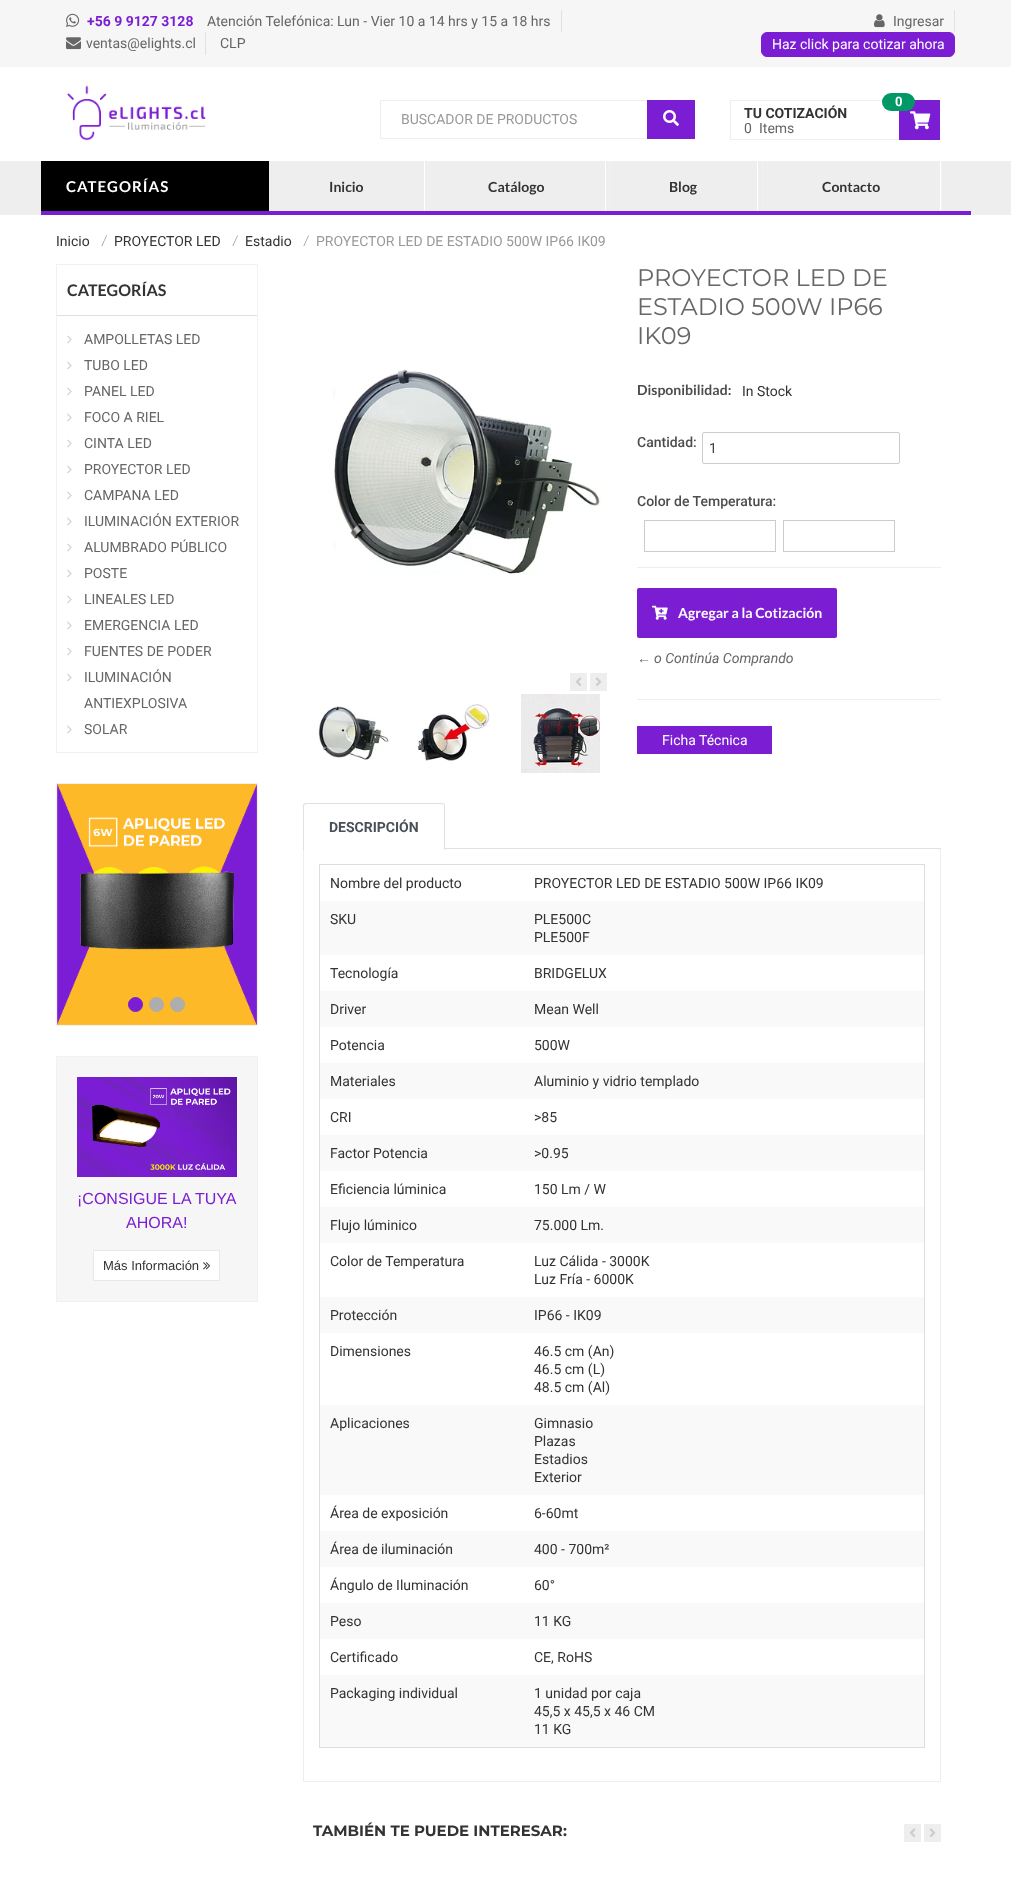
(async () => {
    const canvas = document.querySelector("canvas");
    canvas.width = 1011;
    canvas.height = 1904;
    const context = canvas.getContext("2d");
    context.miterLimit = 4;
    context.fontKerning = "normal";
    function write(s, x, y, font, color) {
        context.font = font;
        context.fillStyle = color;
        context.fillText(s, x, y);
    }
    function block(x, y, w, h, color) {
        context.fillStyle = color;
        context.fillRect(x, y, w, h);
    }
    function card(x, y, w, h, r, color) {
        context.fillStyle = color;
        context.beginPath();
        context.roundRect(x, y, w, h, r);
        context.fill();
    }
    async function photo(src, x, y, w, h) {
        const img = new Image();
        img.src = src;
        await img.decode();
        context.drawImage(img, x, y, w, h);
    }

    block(0, 0, 1011, 1904, "rgb(255, 255, 255)");
    block(0, 0, 1011, 67, "rgb(246, 246, 246)");
    block(561, 10, 1, 22, "rgb(222, 226, 230)");
    await photo("media/1.png", 66, 13, 14, 14);
    write("+56 9 9127 3128", 87, 26, "bold 14px Roboto", "rgb(123, 29, 210)");
    write("Atención Telefónica: Lun - Vier 10 a 14 hrs y 15 a 18 hrs", 207, 26, "14px Roboto", "rgb(102, 102, 102)");
    block(205, 32, 1, 23, "rgb(222, 226, 230)");
    await photo("media/2.png", 66, 37, 15, 13);
    write("ventas@elights.cl", 86, 48, "14px Roboto", "rgb(102, 102, 102)");
    write("CLP", 220, 48, "14px Roboto", "rgb(102, 102, 102)");
    block(954, 10, 1, 22, "rgb(222, 226, 230)");
    await photo("media/3.png", 874, 14, 11, 14);
    write("Ingresar", 893, 26, "14px Roboto", "rgb(102, 102, 102)");
    context.fillStyle = "rgb(123, 29, 210)";
    context.beginPath();
    context.roundRect(761.5, 32.5, 193, 24, 5.5);
    context.fill();
    context.strokeStyle = "rgb(123, 29, 210)";
    context.stroke();
    write("Haz click para cotizar ahora", 772, 49, "14px Roboto", "rgb(255, 255, 255)");
    await photo("media/4.png", 67, 85, 139, 56);
    context.strokeStyle = "rgb(238, 238, 238)";
    context.strokeRect(380.5, 100.5, 267, 38);
    write("BUSCADOR DE PRODUCTOS", 401, 124, "14px Roboto", "rgb(153, 153, 153)");
    block(647, 100, 48, 39, "rgb(123, 29, 210)");
    await photo("media/5.png", 663, 110, 16, 16);
    block(730, 100, 153, 1, "rgb(238, 238, 238)");
    block(730, 139, 169, 1, "rgb(238, 238, 238)");
    block(730, 100, 1, 40, "rgb(238, 238, 238)");
    block(899, 100, 41, 40, "rgb(123, 29, 210)");
    card(882, 93, 33, 18, 9, "rgb(0, 153, 102)");
    write("0", 895, 106, "bold 13px Roboto", "rgb(255, 255, 255)");
    write("TU COTIZACIÓN", 744, 118, "bold 14px Roboto", "rgb(51, 51, 51)");
    write("0", 744, 133, "14px Roboto", "rgb(102, 102, 102)");
    write("Items", 759, 133, "14px Roboto", "rgb(102, 102, 102)");
    await photo("media/6.png", 910, 111, 21, 19);
    block(0, 161, 1011, 54, "rgb(238, 238, 238)");
    block(41, 211, 930, 4, "rgb(123, 29, 210)");
    block(41, 161, 228, 50, "rgb(0, 0, 0)");
    context.letterSpacing = "1px";
    write("CATEGORÍAS", 66, 192, "bold 15px Lato", "rgb(255, 255, 255)");
    block(424, 161, 1, 50, "rgb(255, 255, 255)");
    context.letterSpacing = "0px";
    write("Inicio", 329, 192, "bold 14px Lato", "rgb(51, 51, 51)");
    block(428, 161, 1, 50, "rgb(241, 241, 241)");
    block(605, 161, 1, 50, "rgb(255, 255, 255)");
    write("Catálogo", 488, 192, "bold 14px Lato", "rgb(51, 51, 51)");
    block(609, 161, 1, 50, "rgb(241, 241, 241)");
    block(757, 161, 1, 50, "rgb(255, 255, 255)");
    write("Blog", 669, 192, "bold 14px Lato", "rgb(51, 51, 51)");
    block(941, 161, 1, 50, "rgb(241, 241, 241)");
    block(762, 161, 1, 50, "rgb(241, 241, 241)");
    block(940, 161, 1, 50, "rgb(255, 255, 255)");
    write("Contacto", 822, 192, "bold 14px Lato", "rgb(51, 51, 51)");
    write("Inicio", 56, 246, "14px Roboto", "rgb(51, 51, 51)");
    write("/", 101, 246, "14px Libre Baskerville", "rgb(153, 153, 153)");
    write("PROYECTOR LED", 114, 246, "14px Roboto", "rgb(51, 51, 51)");
    write("/", 232, 246, "14px Libre Baskerville", "rgb(153, 153, 153)");
    write("Estadio", 245, 246, "14px Roboto", "rgb(51, 51, 51)");
    write("/", 303, 246, "14px Libre Baskerville", "rgb(153, 153, 153)");
    write("PROYECTOR LED DE ESTADIO 500W IP66 IK09", 316, 246, "14px Roboto", "rgb(153, 153, 153)");
    context.strokeStyle = "rgb(241, 241, 241)";
    context.strokeRect(56.5, 264.5, 201, 488);
    block(57, 315, 200, 1, "rgb(223, 223, 223)");
    write("CATEGORÍAS", 67, 296, "bold 16px Lato", "rgb(51, 51, 51)");
    await photo("media/7.png", 67, 335, 5, 9);
    write("AMPOLLETAS LED", 84, 344, "14px Roboto", "rgb(102, 102, 102)");
    await photo("media/7.png", 67, 361, 5, 9);
    write("TUBO LED", 84, 370, "14px Roboto", "rgb(102, 102, 102)");
    await photo("media/7.png", 67, 387, 5, 9);
    write("PANEL LED", 84, 396, "14px Roboto", "rgb(102, 102, 102)");
    await photo("media/7.png", 67, 413, 5, 9);
    write("FOCO A RIEL", 84, 422, "14px Roboto", "rgb(102, 102, 102)");
    await photo("media/7.png", 67, 439, 5, 9);
    write("CINTA LED", 84, 448, "14px Roboto", "rgb(102, 102, 102)");
    await photo("media/7.png", 67, 465, 5, 9);
    write("PROYECTOR LED", 84, 474, "14px Roboto", "rgb(102, 102, 102)");
    await photo("media/7.png", 67, 491, 5, 9);
    write("CAMPANA LED", 84, 500, "14px Roboto", "rgb(102, 102, 102)");
    await photo("media/7.png", 67, 517, 5, 9);
    write("ILUMINACIÓN EXTERIOR", 84, 526, "14px Roboto", "rgb(102, 102, 102)");
    await photo("media/7.png", 67, 543, 5, 9);
    write("ALUMBRADO PÚBLICO", 84, 552, "14px Roboto", "rgb(102, 102, 102)");
    await photo("media/7.png", 67, 569, 5, 9);
    write("POSTE", 84, 578, "14px Roboto", "rgb(102, 102, 102)");
    await photo("media/7.png", 67, 595, 5, 9);
    write("LINEALES LED", 84, 604, "14px Roboto", "rgb(102, 102, 102)");
    await photo("media/7.png", 67, 621, 5, 9);
    write("EMERGENCIA LED", 84, 630, "14px Roboto", "rgb(102, 102, 102)");
    await photo("media/7.png", 67, 647, 5, 9);
    write("FUENTES DE PODER", 84, 656, "14px Roboto", "rgb(102, 102, 102)");
    await photo("media/7.png", 67, 673, 5, 9);
    write("ILUMINACIÓN", 84, 682, "14px Roboto", "rgb(102, 102, 102)");
    write("ANTIEXPLOSIVA", 84, 708, "14px Roboto", "rgb(102, 102, 102)");
    await photo("media/7.png", 67, 725, 5, 9);
    write("SOLAR", 84, 734, "14px Roboto", "rgb(102, 102, 102)");
    context.strokeRect(56.5, 783.5, 201, 242);
    await photo("media/8.png", 57, 784, 200, 241);
    context.fillStyle = "rgb(123, 29, 210)";
    context.beginPath();
    context.arc(135.5, 1004.5, 7, 0, Math.PI * 2);
    context.fill();
    context.strokeStyle = "rgb(123, 29, 210)";
    context.stroke();
    context.fillStyle = "rgb(173, 173, 173)";
    context.beginPath();
    context.arc(156.5, 1004.5, 7, 0, Math.PI * 2);
    context.fill();
    context.strokeStyle = "rgb(173, 173, 173)";
    context.stroke();
    context.beginPath();
    context.arc(177.5, 1004.5, 7, 0, Math.PI * 2);
    context.fill();
    context.stroke();
    context.strokeStyle = "rgb(241, 241, 241)";
    context.strokeRect(56.5, 1056.5, 201, 245);
    block(57, 1057, 200, 244, "rgb(246, 246, 246)");
    await photo("media/9.png", 77, 1077, 160, 100);
    write("¡CONSIGUE LA TUYA", 77, 1204, "16px Liberation Sans", "rgb(123, 29, 210)");
    write("AHORA!", 126, 1228, "16px Liberation Sans", "rgb(123, 29, 210)");
    context.fillStyle = "rgb(255, 255, 255)";
    context.beginPath();
    context.rect(93.5, 1250.5, 126, 30);
    context.fill();
    context.strokeStyle = "rgb(232, 232, 232)";
    context.stroke();
    write("Más Información", 103, 1270, "13px Liberation Sans", "rgb(51, 51, 51)");
    await photo("media/10.png", 203, 1262, 8, 8);
    await photo("media/11.png", 333, 369, 268, 206);
    block(570, 673, 17, 18, "rgb(238, 238, 238)");
    await photo("media/12.png", 575, 677, 7, 9);
    block(590, 673, 17, 18, "rgb(238, 238, 238)");
    await photo("media/13.png", 595, 677, 7, 9);
    await photo("media/14.png", 318, 706, 71, 54);
    await photo("media/15.png", 417, 704, 73, 57);
    await photo("media/16.png", 521, 694, 79, 79);
    write("PROYECTOR LED DE", 637, 286, "100 24px Montserrat", "rgb(102, 102, 102)");
    write("ESTADIO 500W IP66", 637, 315, "100 24px Montserrat", "rgb(102, 102, 102)");
    write("IK09", 637, 344, "100 24px Montserrat", "rgb(102, 102, 102)");
    write("Disponibilidad:", 637, 395, "bold 14px Lato", "rgb(77, 77, 77)");
    write("In Stock", 742, 396, "14px Roboto", "rgb(51, 51, 51)");
    write("Cantidad:", 637, 447, "500 14px Roboto", "rgb(77, 77, 77)");
    context.beginPath();
    context.roundRect(702.5, 432.5, 197, 31, 1.5);
    context.strokeStyle = "rgb(204, 204, 204)";
    context.stroke();
    write("1", 709, 453, "14px Roboto", "rgb(64, 64, 64)");
    write("Color de Temperatura:", 637, 506, "500 14px Roboto", "rgb(77, 77, 77)");
    context.strokeRect(644.5, 520.5, 131, 31);
    context.strokeRect(783.5, 520.5, 111, 31);
    block(637, 567, 304, 1, "rgb(238, 238, 238)");
    card(637, 588, 200, 50, 2, "rgb(123, 29, 210)");
    await photo("media/17.png", 652, 605, 16, 15);
    write("Agregar a la Cotización", 678, 618, "bold 14px Lato", "rgb(255, 255, 255)");
    write("←", 637, 663, "italic 14px Liberation Sans", "rgb(102, 102, 102)");
    write("o Continúa Comprando", 654, 663, "italic 14px Roboto", "rgb(102, 102, 102)");
    block(637, 699, 304, 1, "rgb(238, 238, 238)");
    block(637, 726, 135, 28, "rgb(123, 29, 210)");
    write("Ficha Técnica", 662, 745, "14px Roboto", "rgb(255, 255, 255)");
    block(445, 848, 496, 1, "rgb(222, 226, 230)");
    block(940, 849, 1, 933, "rgb(238, 238, 238)");
    block(303, 1781, 638, 1, "rgb(238, 238, 238)");
    block(303, 849, 1, 933, "rgb(238, 238, 238)");
    context.fillStyle = "rgb(255, 255, 255)";
    context.beginPath();
    context.roundRect(303, 803, 142, 47, [2.5, 2.5, 0, 0]);
    context.fill();
    context.fillStyle = "rgb(222, 226, 230)";
    context.beginPath();
    context.moveTo(306, 803);
    context.lineTo(442, 803);
    context.bezierCurveTo(444, 803, 445, 804, 445, 806);
    context.lineTo(445, 850);
    context.lineTo(303, 850);
    context.lineTo(303, 806);
    context.bezierCurveTo(303, 804, 304, 803, 306, 803);
    context.closePath();
    context.moveTo(306, 804);
    context.lineTo(442, 804);
    context.bezierCurveTo(443, 804, 444, 805, 444, 806);
    context.lineTo(444, 850);
    context.lineTo(304, 850);
    context.lineTo(304, 806);
    context.bezierCurveTo(304, 805, 305, 804, 306, 804);
    context.closePath();
    context.fill("evenodd");
    write("DESCRIPCIÓN", 329, 832, "bold 14px Roboto", "rgb(73, 80, 87)");
    block(319, 864, 606, 1, "rgb(221, 221, 221)");
    block(924, 864, 1, 884, "rgb(221, 221, 221)");
    block(319, 1747, 606, 1, "rgb(221, 221, 221)");
    block(319, 864, 1, 884, "rgb(221, 221, 221)");
    write("Nombre del producto", 330, 888, "14px Roboto", "rgb(51, 51, 51)");
    write("PROYECTOR LED DE ESTADIO 500W IP66 IK09", 534, 888, "14px Roboto", "rgb(51, 51, 51)");
    block(320, 901, 604, 54, "rgb(249, 249, 249)");
    write("SKU", 330, 924, "14px Roboto", "rgb(51, 51, 51)");
    write("PLE500C", 534, 924, "14px Roboto", "rgb(51, 51, 51)");
    write("PLE500F", 534, 942, "14px Roboto", "rgb(51, 51, 51)");
    write("Tecnología", 330, 978, "14px Roboto", "rgb(51, 51, 51)");
    write("BRIDGELUX", 534, 978, "14px Roboto", "rgb(51, 51, 51)");
    block(320, 991, 604, 36, "rgb(249, 249, 249)");
    write("Driver", 330, 1014, "14px Roboto", "rgb(51, 51, 51)");
    write("Mean Well", 534, 1014, "14px Roboto", "rgb(51, 51, 51)");
    write("Potencia", 330, 1050, "14px Roboto", "rgb(51, 51, 51)");
    write("500W", 534, 1050, "14px Roboto", "rgb(51, 51, 51)");
    block(320, 1063, 604, 36, "rgb(249, 249, 249)");
    write("Materiales", 330, 1086, "14px Roboto", "rgb(51, 51, 51)");
    write("Aluminio y vidrio templado", 534, 1086, "14px Roboto", "rgb(51, 51, 51)");
    write("CRI", 330, 1122, "14px Roboto", "rgb(51, 51, 51)");
    write(">85", 534, 1122, "14px Roboto", "rgb(51, 51, 51)");
    block(320, 1135, 604, 36, "rgb(249, 249, 249)");
    write("Factor Potencia", 330, 1158, "14px Roboto", "rgb(51, 51, 51)");
    write(">0.95", 534, 1158, "14px Roboto", "rgb(51, 51, 51)");
    write("Eficiencia lúminica", 330, 1194, "14px Roboto", "rgb(51, 51, 51)");
    write("150 Lm / W", 534, 1194, "14px Roboto", "rgb(51, 51, 51)");
    block(320, 1207, 604, 36, "rgb(249, 249, 249)");
    write("Flujo lúminico", 330, 1230, "14px Roboto", "rgb(51, 51, 51)");
    write("75.000 Lm.", 534, 1230, "14px Roboto", "rgb(51, 51, 51)");
    write("Color de Temperatura", 330, 1266, "14px Roboto", "rgb(51, 51, 51)");
    write("Luz Cálida - 3000K", 534, 1266, "14px Roboto", "rgb(51, 51, 51)");
    write("Luz Fría - 6000K", 534, 1284, "14px Roboto", "rgb(51, 51, 51)");
    block(320, 1297, 604, 36, "rgb(249, 249, 249)");
    write("Protección", 330, 1320, "14px Roboto", "rgb(51, 51, 51)");
    write("IP66 - IK09", 534, 1320, "14px Roboto", "rgb(51, 51, 51)");
    write("Dimensiones", 330, 1356, "14px Roboto", "rgb(51, 51, 51)");
    write("46.5 cm (An)", 534, 1356, "14px Roboto", "rgb(51, 51, 51)");
    write("46.5 cm (L)", 534, 1374, "14px Roboto", "rgb(51, 51, 51)");
    write("48.5 cm (Al)", 534, 1392, "14px Roboto", "rgb(51, 51, 51)");
    block(320, 1405, 604, 90, "rgb(249, 249, 249)");
    write("Aplicaciones", 330, 1428, "14px Roboto", "rgb(51, 51, 51)");
    write("Gimnasio", 534, 1428, "14px Roboto", "rgb(51, 51, 51)");
    write("Plazas", 534, 1446, "14px Roboto", "rgb(51, 51, 51)");
    write("Estadios", 534, 1464, "14px Roboto", "rgb(51, 51, 51)");
    write("Exterior", 534, 1482, "14px Roboto", "rgb(51, 51, 51)");
    write("Área de exposición", 330, 1518, "14px Roboto", "rgb(51, 51, 51)");
    write("6-60mt", 534, 1518, "14px Roboto", "rgb(51, 51, 51)");
    block(320, 1531, 604, 36, "rgb(249, 249, 249)");
    write("Área de iluminación", 330, 1554, "14px Roboto", "rgb(51, 51, 51)");
    write("400 - 700m²", 534, 1554, "14px Roboto", "rgb(51, 51, 51)");
    write("Ángulo de Iluminación", 330, 1590, "14px Roboto", "rgb(51, 51, 51)");
    write("60°", 534, 1590, "14px Roboto", "rgb(51, 51, 51)");
    block(320, 1603, 604, 36, "rgb(249, 249, 249)");
    write("Peso", 330, 1626, "14px Roboto", "rgb(51, 51, 51)");
    write("11 KG", 534, 1626, "14px Roboto", "rgb(51, 51, 51)");
    write("Certificado", 330, 1662, "14px Roboto", "rgb(51, 51, 51)");
    write("CE, RoHS", 534, 1662, "14px Roboto", "rgb(51, 51, 51)");
    block(320, 1675, 604, 72, "rgb(249, 249, 249)");
    write("Packaging individual", 330, 1698, "14px Roboto", "rgb(51, 51, 51)");
    write("1 unidad por caja", 534, 1698, "14px Roboto", "rgb(51, 51, 51)");
    write("45,5 x 45,5 x 46 CM", 534, 1716, "14px Roboto", "rgb(51, 51, 51)");
    write("11 KG", 534, 1734, "14px Roboto", "rgb(51, 51, 51)");
    write("TAMBIÉN TE PUEDE INTERESAR:", 313, 1836, "bold 15px Montserrat", "rgb(51, 51, 51)");
    block(904, 1824, 17, 18, "rgb(238, 238, 238)");
    await photo("media/12.png", 909, 1828, 7, 9);
    block(924, 1824, 17, 18, "rgb(238, 238, 238)");
    await photo("media/13.png", 929, 1828, 7, 9);
})();
